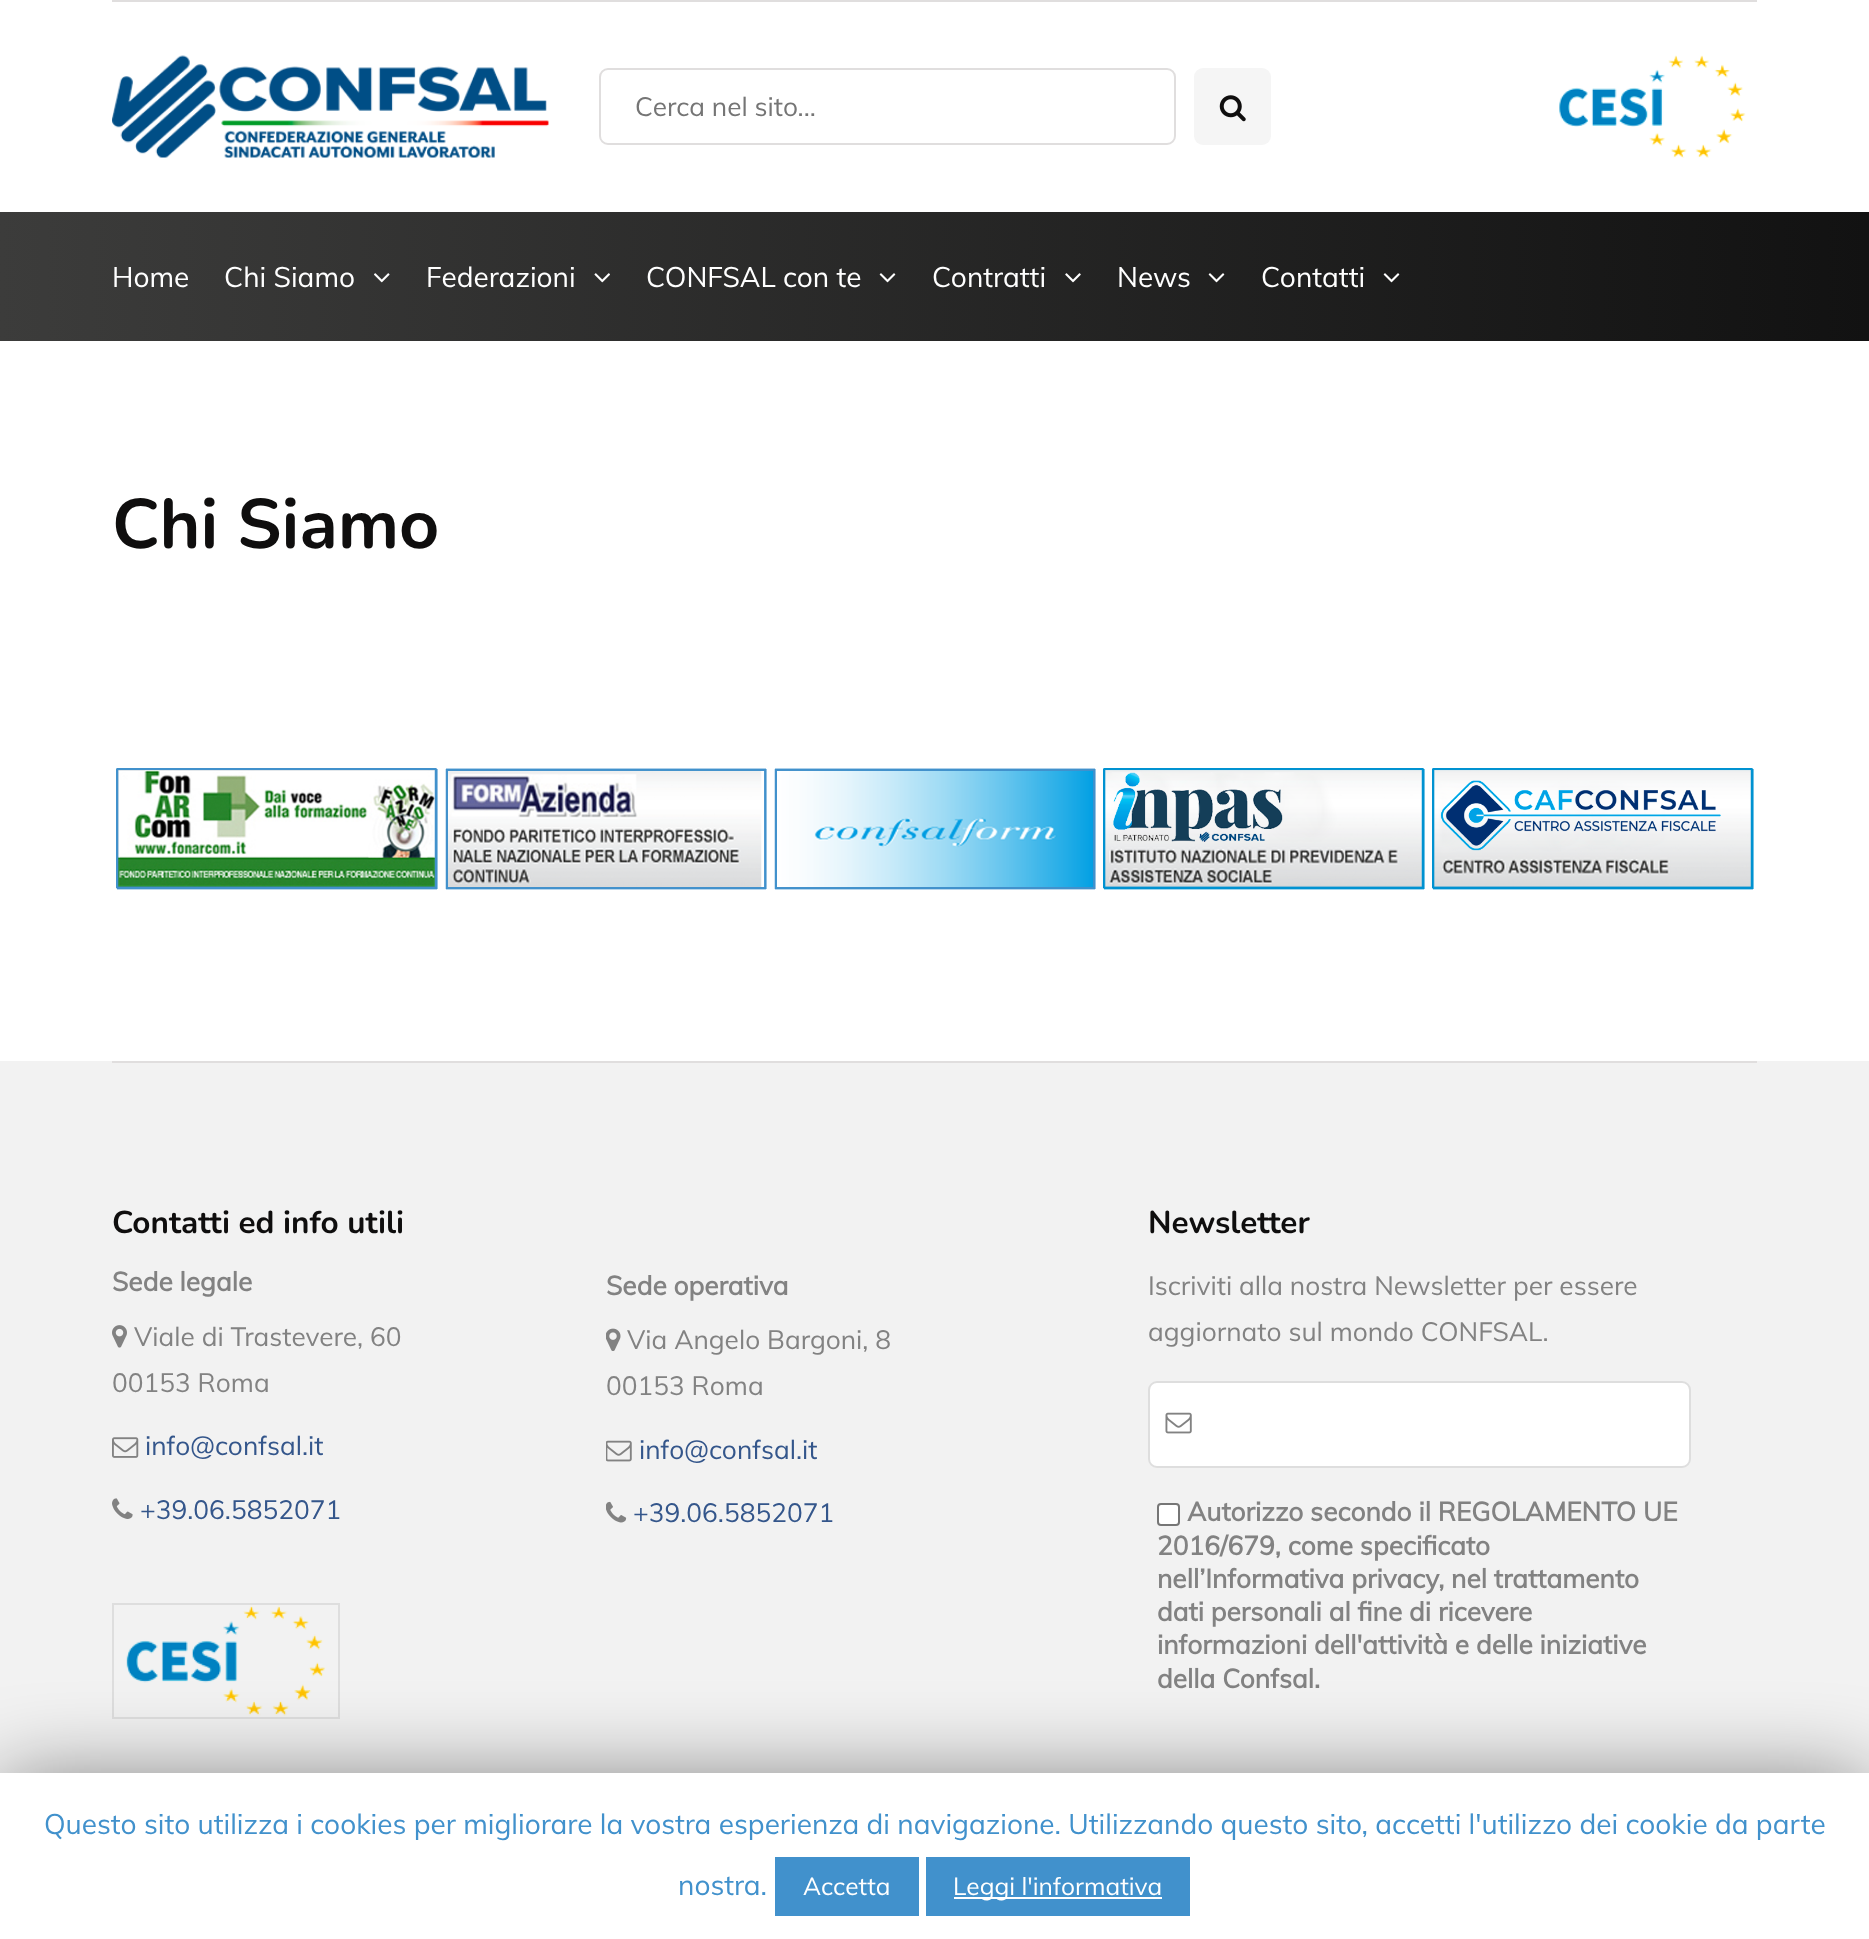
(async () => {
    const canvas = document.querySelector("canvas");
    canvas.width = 1869;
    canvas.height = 1939;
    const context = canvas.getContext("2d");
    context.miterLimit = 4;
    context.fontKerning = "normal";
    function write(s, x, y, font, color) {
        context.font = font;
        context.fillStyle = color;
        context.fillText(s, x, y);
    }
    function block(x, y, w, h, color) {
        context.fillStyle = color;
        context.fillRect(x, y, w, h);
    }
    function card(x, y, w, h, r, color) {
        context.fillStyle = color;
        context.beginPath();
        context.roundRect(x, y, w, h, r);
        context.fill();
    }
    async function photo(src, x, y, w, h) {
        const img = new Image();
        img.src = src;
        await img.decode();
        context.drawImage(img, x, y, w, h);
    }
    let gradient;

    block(0, 0, 1869, 1939, "rgb(255, 255, 255)");
    block(112, 0, 1645, 2, "rgb(224, 222, 222)");
    await photo("media/1.png", 112, 55, 437, 103);
    context.beginPath();
    context.roundRect(600, 69, 575, 75, 8);
    context.strokeStyle = "rgb(224, 222, 222)";
    context.lineWidth = 2;
    context.stroke();
    write("Cerca nel sito...", 635, 116, "26.25px Muli", "rgb(117, 117, 117)");
    card(1194, 68, 77, 77, 9, "rgb(245, 245, 245)");
    await photo("media/2.png", 1219, 95, 27, 27);
    await photo("media/3.png", 1559, 55, 187, 103);
    gradient = context.createLinearGradient(0, 277, 1869, 276);
    gradient.addColorStop(0, "rgb(60, 60, 59)");
    gradient.addColorStop(1, "rgb(18, 18, 18)");
    context.fillStyle = gradient;
    context.fillRect(0, 212, 1869, 129);
    write("Home", 112, 287, "28px Muli", "rgb(255, 255, 255)");
    write("Chi Siamo", 224, 287, "28px Muli", "rgb(255, 255, 255)");
    await photo("media/4.png", 374, 273, 16, 10);
    write("Federazioni", 426, 287, "28px Muli", "rgb(255, 255, 255)");
    await photo("media/5.png", 594, 273, 16, 10);
    write("CONFSAL con te", 646, 287, "28px Muli", "rgb(255, 255, 255)");
    await photo("media/6.png", 879, 273, 17, 10);
    write("Contratti", 932, 287, "28px Muli", "rgb(255, 255, 255)");
    await photo("media/7.png", 1065, 273, 16, 10);
    write("News", 1117, 287, "28px Muli", "rgb(255, 255, 255)");
    await photo("media/8.png", 1208, 273, 17, 10);
    write("Contatti", 1261, 287, "28px Muli", "rgb(255, 255, 255)");
    await photo("media/9.png", 1383, 273, 17, 10);
    write("Chi Siamo", 112, 548, "bold 70px Nunito", "rgb(15, 14, 14)");
    await photo("media/10.png", 116, 768, 322, 122);
    await photo("media/11.png", 445, 768, 322, 122);
    await photo("media/12.png", 774, 768, 322, 122);
    await photo("media/13.png", 1103, 768, 322, 122);
    await photo("media/14.png", 1432, 768, 322, 122);
    block(0, 1061, 1869, 712, "rgb(242, 242, 242)");
    block(112, 1061, 1645, 2, "rgb(224, 222, 222)");
    write("Contatti ed info utili", 112, 1233, "bold 31.5px Nunito", "rgb(15, 14, 14)");
    write("Sede legale", 112, 1291, "bold 26.25px Muli", "rgb(130, 130, 130)");
    await photo("media/15.png", 112, 1325, 15, 23);
    write("Viale di Trastevere, 60", 134, 1346, "26.25px Muli", "rgb(130, 130, 130)");
    write("00153 Roma", 112, 1392, "26.25px Muli", "rgb(130, 130, 130)");
    await photo("media/16.png", 112, 1437, 27, 21);
    write("info@confsal.it", 145, 1455, "26.25px Muli", "rgb(52, 86, 139)");
    await photo("media/17.png", 112, 1498, 21, 21);
    write("+39.06.5852071", 140, 1519, "26.25px Muli", "rgb(52, 86, 139)");
    context.strokeStyle = "rgb(222, 222, 222)";
    context.strokeRect(113, 1604, 226, 114);
    await photo("media/18.png", 126, 1605, 200, 111);
    write("Sede operativa", 606, 1295, "bold 26.25px Muli", "rgb(130, 130, 130)");
    await photo("media/19.png", 606, 1328, 15, 23);
    write("Via Angelo Bargoni, 8", 627, 1349, "26.25px Muli", "rgb(130, 130, 130)");
    write("00153 Roma", 606, 1395, "26.25px Muli", "rgb(130, 130, 130)");
    await photo("media/20.png", 606, 1440, 26, 22);
    write("info@confsal.it", 639, 1459, "26.25px Muli", "rgb(52, 86, 139)");
    await photo("media/21.png", 606, 1501, 21, 22);
    write("+39.06.5852071", 633, 1522, "26.25px Muli", "rgb(52, 86, 139)");
    write("Newsletter", 1148, 1233, "bold 31.5px Nunito", "rgb(15, 14, 14)");
    write("Iscriviti alla nostra Newsletter per essere", 1148, 1295, "26.25px Muli", "rgb(130, 130, 130)");
    write("aggiornato sul mondo CONFSAL.", 1148, 1341, "26.25px Muli", "rgb(130, 130, 130)");
    context.fillStyle = "rgb(255, 255, 255)";
    context.beginPath();
    context.roundRect(1149, 1382, 541, 85, 8);
    context.fill();
    context.stroke();
    await photo("media/22.png", 1165, 1412, 27, 22);
    context.beginPath();
    context.roundRect(1158, 1504, 21, 21, 3);
    context.fill();
    context.strokeStyle = "rgb(118, 118, 118)";
    context.stroke();
    write("Autorizzo secondo il REGOLAMENTO UE", 1187, 1521, "bold 26.25px Muli", "rgb(130, 130, 130)");
    write("2016/679, come specificato", 1157, 1555, "bold 26.25px Muli", "rgb(130, 130, 130)");
    write("nell’Informativa privacy, nel trattamento", 1157, 1588, "bold 26.25px Muli", "rgb(130, 130, 130)");
    write("dati personali al fine di ricevere", 1157, 1621, "bold 26.25px Muli", "rgb(130, 130, 130)");
    write("informazioni dell'attività e delle iniziative", 1157, 1654, "bold 26.25px Muli", "rgb(130, 130, 130)");
    write("della Confsal.", 1157, 1688, "bold 26.25px Muli", "rgb(130, 130, 130)");
    context.fillStyle = "rgba(0, 0, 0, 0.5)";
    context.filter = "blur(44px)";
    context.beginPath();
    context.rect(0, 1782, 1869, 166);
    context.fill();
    context.filter = "none";
    block(0, 1773, 1869, 166, "rgb(255, 255, 255)");
    write("Questo sito utilizza i cookies per migliorare la vostra esperienza di navigazione. Utilizzando questo sito, accetti l'utilizzo dei cookie da parte", 44, 1834, "28px Muli", "rgb(65, 145, 204)");
    write("nostra.", 678, 1895, "28px Muli", "rgb(65, 145, 204)");
    block(775, 1857, 144, 59, "rgb(65, 145, 204)");
    write("Accetta", 803, 1895, "24.5px Muli", "rgb(255, 255, 255)");
    block(926, 1857, 264, 59, "rgb(65, 145, 204)");
    block(954, 1897, 208, 2, "rgb(255, 255, 255)");
    write("Leggi l'informativa", 953, 1895, "24.5px Muli", "rgb(255, 255, 255)");
})();
